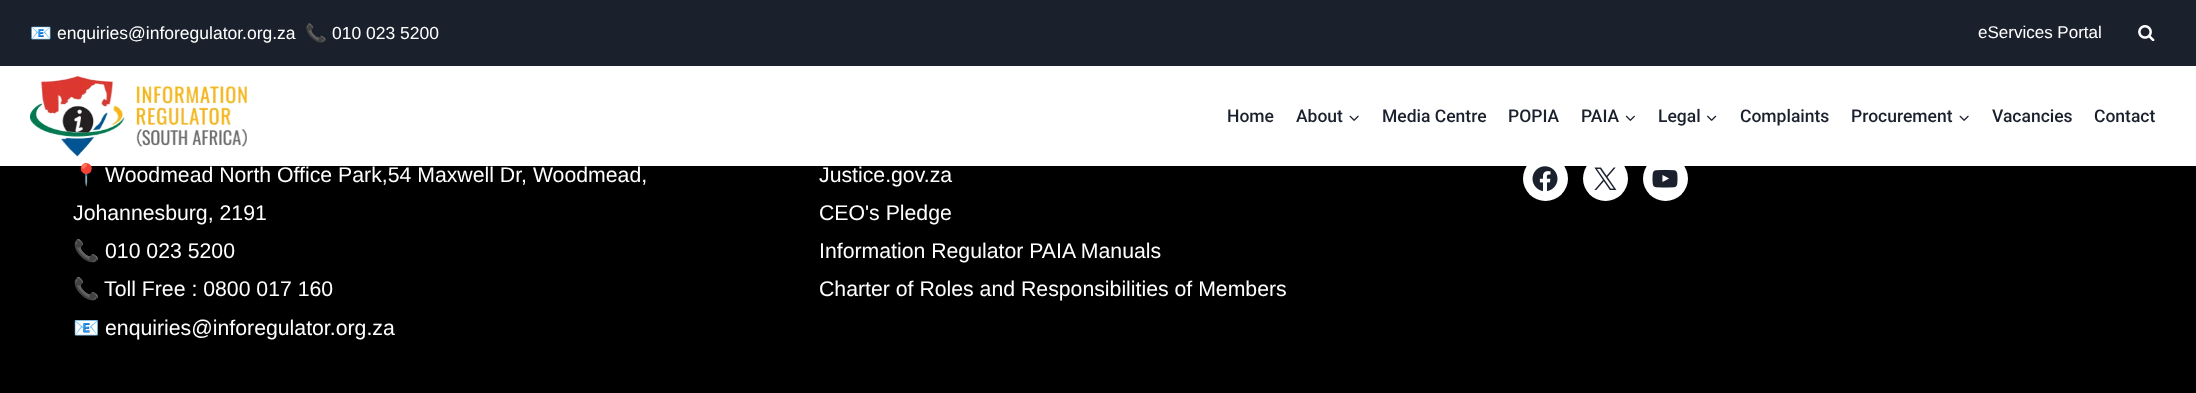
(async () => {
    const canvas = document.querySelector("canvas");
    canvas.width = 2196;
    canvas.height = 393;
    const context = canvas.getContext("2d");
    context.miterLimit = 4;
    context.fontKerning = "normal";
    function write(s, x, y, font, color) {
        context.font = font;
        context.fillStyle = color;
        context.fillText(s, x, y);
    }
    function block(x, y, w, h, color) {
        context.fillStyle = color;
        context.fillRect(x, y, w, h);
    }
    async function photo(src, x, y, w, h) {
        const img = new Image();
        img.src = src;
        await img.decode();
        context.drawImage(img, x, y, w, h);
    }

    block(0, 0, 2196, 393, "rgb(0, 0, 0)");
    block(0, 0, 2196, 66, "rgb(26, 32, 44)");
    write("📧", 30, 39, "17.5px Noto Color Emoji", "rgb(255, 255, 255)");
    write("enquiries@inforegulator.org.za", 57, 39, "17.5px Liberation Sans", "rgb(255, 255, 255)");
    write("📞", 305, 39, "17.5px Noto Color Emoji", "rgb(255, 255, 255)");
    write("010 023 5200", 332, 39, "17.5px Liberation Sans", "rgb(255, 255, 255)");
    write("eServices Portal", 1978, 38, "17px Liberation Sans", "rgb(255, 255, 255)");
    await photo("media/1.png", 2138, 25, 17, 16);
    context.beginPath();
    context.arc(1545.5, 178.5, 22.5, 0, Math.PI * 2);
    context.fill();
    context.beginPath();
    context.arc(1605.5, 178.5, 22.5, 0, Math.PI * 2);
    context.fill();
    context.beginPath();
    context.arc(1665.5, 178.5, 22.5, 0, Math.PI * 2);
    context.fill();
    block(0, 66, 2196, 100, "rgb(255, 255, 255)");
    await photo("media/2.png", 30, 75, 217, 82);
    write("Home", 1227, 122, "500 17.5px Roboto", "rgb(26, 32, 44)");
    write("About", 1296, 122, "500 17.5px Roboto", "rgb(26, 32, 44)");
    await photo("media/3.png", 1349, 115, 10, 6);
    write("Media Centre", 1382, 122, "500 17.5px Roboto", "rgb(26, 32, 44)");
    write("POPIA", 1508, 122, "500 17.5px Roboto", "rgb(26, 32, 44)");
    write("PAIA", 1581, 122, "500 17.5px Roboto", "rgb(26, 32, 44)");
    await photo("media/4.png", 1625, 115, 10, 6);
    write("Legal", 1658, 122, "500 17.5px Roboto", "rgb(26, 32, 44)");
    await photo("media/5.png", 1707, 115, 10, 6);
    write("Complaints", 1740, 122, "500 17.5px Roboto", "rgb(26, 32, 44)");
    write("Procurement", 1851, 122, "500 17.5px Roboto", "rgb(26, 32, 44)");
    await photo("media/3.png", 1959, 115, 10, 6);
    write("Vacancies", 1992, 122, "500 17.5px Roboto", "rgb(26, 32, 44)");
    write("Contact", 2094, 122, "500 17.5px Roboto", "rgb(26, 32, 44)");
    write("📍", 73, 182, "21.25px Noto Color Emoji", "rgb(255, 255, 255)");
    write("Woodmead North Office Park,54 Maxwell Dr, Woodmead,", 105, 182, "21.25px Liberation Sans", "rgb(255, 255, 255)");
    write("Johannesburg, 2191", 73, 220, "21.25px Liberation Sans", "rgb(255, 255, 255)");
    write("📞", 73, 258, "21.25px Noto Color Emoji", "rgb(255, 255, 255)");
    write("010 023 5200", 105, 258, "21.25px Liberation Sans", "rgb(255, 255, 255)");
    write("📞", 73, 296, "21.25px Noto Color Emoji", "rgb(255, 255, 255)");
    write("Toll Free : 0800 017 160", 104, 296, "21.25px Liberation Sans", "rgb(255, 255, 255)");
    write("📧", 73, 335, "21.25px Noto Color Emoji", "rgb(255, 255, 255)");
    write("enquiries@inforegulator.org.za", 105, 335, "21.25px Liberation Sans", "rgb(255, 255, 255)");
    write("Justice.gov.za", 819, 182, "21.25px Liberation Sans", "rgb(255, 255, 255)");
    write("CEO's Pledge", 819, 220, "21.25px Liberation Sans", "rgb(255, 255, 255)");
    write("Information Regulator PAIA Manuals", 819, 258, "21.25px Liberation Sans", "rgb(255, 255, 255)");
    write("Charter of Roles and Responsibilities of Members", 819, 296, "21.25px Liberation Sans", "rgb(255, 255, 255)");
    await photo("media/6.png", 1532, 166, 26, 26);
    await photo("media/7.png", 1594, 167, 23, 23);
    await photo("media/8.png", 1652, 169, 26, 19);
})();
